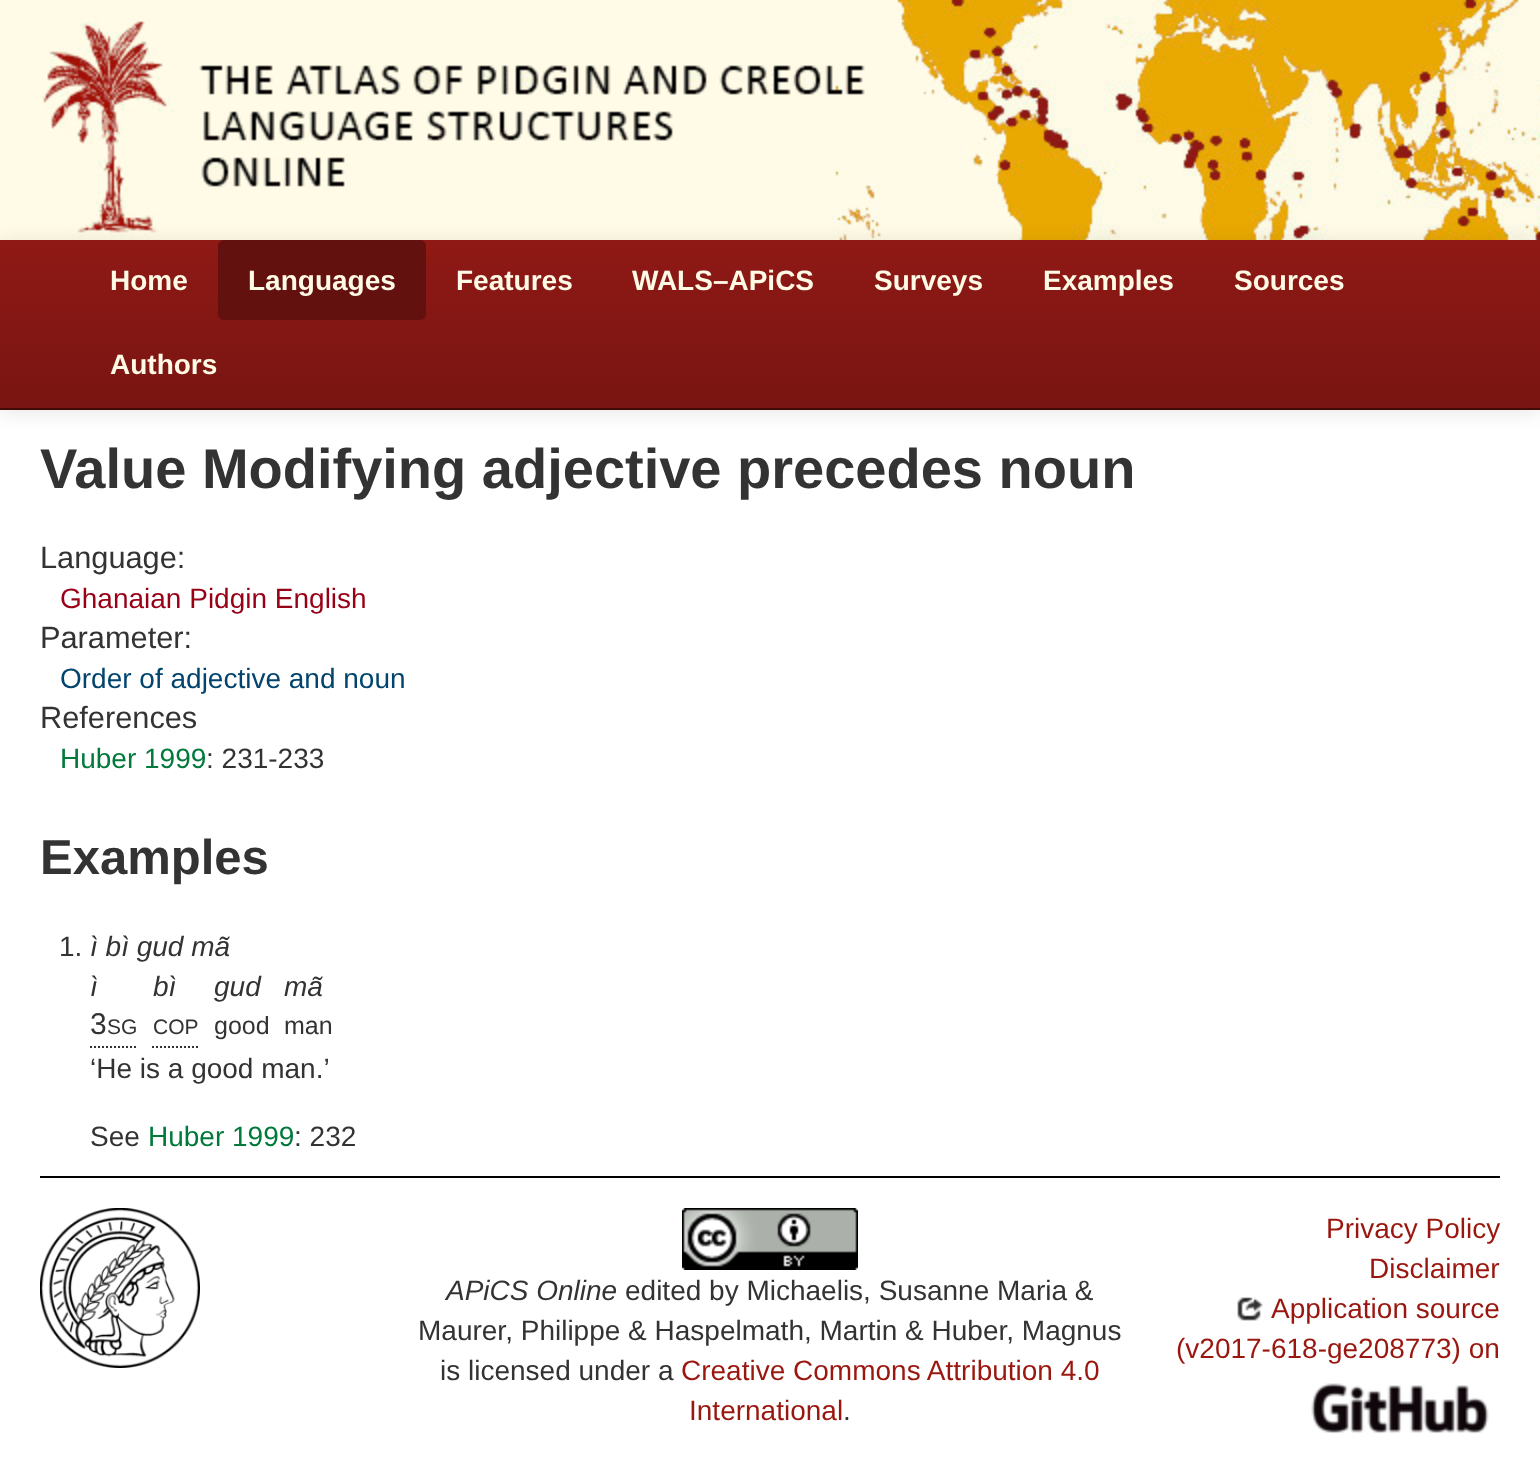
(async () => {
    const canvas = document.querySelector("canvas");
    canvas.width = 1540;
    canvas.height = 1478;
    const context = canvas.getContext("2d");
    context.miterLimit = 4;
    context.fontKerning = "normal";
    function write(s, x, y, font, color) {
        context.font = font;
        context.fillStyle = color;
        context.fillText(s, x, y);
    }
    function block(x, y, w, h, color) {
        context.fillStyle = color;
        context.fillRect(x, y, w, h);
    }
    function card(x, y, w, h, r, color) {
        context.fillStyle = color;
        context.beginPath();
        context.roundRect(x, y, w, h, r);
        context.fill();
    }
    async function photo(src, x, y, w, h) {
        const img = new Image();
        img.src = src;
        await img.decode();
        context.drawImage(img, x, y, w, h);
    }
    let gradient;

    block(0, 0, 1540, 1478, "rgb(255, 255, 255)");
    block(0, 0, 41, 240, "rgb(255, 251, 231)");
    await photo("media/1.png", 41, 0, 1499, 240);
    context.fillStyle = "rgba(0, 0, 0, 0.1)";
    context.filter = "blur(10px)";
    context.beginPath();
    context.rect(0, 242, 1540, 170);
    context.fill();
    context.filter = "none";
    gradient = context.createLinearGradient(770, 240, 770, 408);
    gradient.addColorStop(0, "rgb(143, 25, 21)");
    gradient.addColorStop(1, "rgb(121, 21, 18)");
    context.fillStyle = gradient;
    context.fillRect(0, 240, 1540, 168);
    block(0, 408, 1540, 2, "rgb(67, 12, 10)");
    write("Home", 110, 290, "bold 28px Liberation Sans", "rgb(255, 250, 230)");
    card(218, 240, 208, 80, 6, "rgb(99, 17, 14)");
    write("Languages", 248, 290, "bold 28px Liberation Sans", "rgb(255, 250, 230)");
    write("Features", 456, 290, "bold 28px Liberation Sans", "rgb(255, 250, 230)");
    write("WALS–APiCS", 632, 290, "bold 28px Liberation Sans", "rgb(255, 250, 230)");
    write("Surveys", 874, 290, "bold 28px Liberation Sans", "rgb(255, 250, 230)");
    write("Examples", 1043, 290, "bold 28px Liberation Sans", "rgb(255, 250, 230)");
    write("Sources", 1234, 290, "bold 28px Liberation Sans", "rgb(255, 250, 230)");
    write("Authors", 110, 374, "bold 28px Liberation Sans", "rgb(255, 250, 230)");
    write("Value Modifying adjective precedes noun", 40, 488, "bold 56px Liberation Sans", "rgb(51, 51, 51)");
    write("Language:", 40, 568, "30.75px Liberation Sans", "rgb(51, 51, 51)");
    write("Ghanaian Pidgin English", 60, 608, "28px Liberation Sans", "rgb(152, 0, 21)");
    write("Parameter:", 40, 648, "30.75px Liberation Sans", "rgb(51, 51, 51)");
    write("Order of adjective and noun", 60, 688, "28px Liberation Sans", "rgb(2, 68, 110)");
    write("References", 40, 728, "30.75px Liberation Sans", "rgb(51, 51, 51)");
    write("Huber 1999", 60, 768, "28px Liberation Sans", "rgb(0, 121, 59)");
    write(": 231-233", 206, 768, "28px Liberation Sans", "rgb(51, 51, 51)");
    write("Examples", 40, 874, "bold 49px Liberation Sans", "rgb(51, 51, 51)");
    write("1.", 59, 956, "28px Liberation Sans", "rgb(51, 51, 51)");
    write("ì bì gud mã", 90, 956, "italic 28px Liberation Sans", "rgb(51, 51, 51)");
    write("ì", 90, 996, "italic 28px Liberation Sans", "rgb(51, 51, 51)");
    context.beginPath();
    context.moveTo(90, 1047);
    context.lineTo(138, 1047);
    context.strokeStyle = "rgb(51, 51, 51)";
    context.lineWidth = 2;
    context.setLineDash([2, 2]);
    context.stroke();
    write("3", 90, 1034, "30px Liberation Sans", "rgb(51, 51, 51)");
    write("SG", 107, 1034, "21px Liberation Sans", "rgb(51, 51, 51)");
    write("bì", 153, 996, "italic 28px Liberation Sans", "rgb(51, 51, 51)");
    context.beginPath();
    context.moveTo(152, 1047);
    context.lineTo(200, 1047);
    context.stroke();
    write("COP", 153, 1034, "21px Liberation Sans", "rgb(51, 51, 51)");
    write("gud", 214, 996, "italic 28px Liberation Sans", "rgb(51, 51, 51)");
    write("good", 214, 1034, "25px Liberation Sans", "rgb(51, 51, 51)");
    write("mã", 284, 996, "italic 28px Liberation Sans", "rgb(51, 51, 51)");
    write("man", 284, 1034, "25px Liberation Sans", "rgb(51, 51, 51)");
    write("‘He is a good man.’", 90, 1078, "28px Liberation Sans", "rgb(51, 51, 51)");
    write("See", 90, 1146, "28px Liberation Sans", "rgb(51, 51, 51)");
    write("Huber 1999", 148, 1146, "28px Liberation Sans", "rgb(0, 121, 59)");
    write(": 232", 294, 1146, "28px Liberation Sans", "rgb(51, 51, 51)");
    block(40, 1176, 1460, 2, "rgb(0, 0, 0)");
    await photo("media/2.png", 40, 1208, 160, 160);
    await photo("media/3.png", 682, 1208, 176, 62);
    write("APiCS Online", 446, 1300, "italic 28px Liberation Sans", "rgb(51, 51, 51)");
    write("edited by Michaelis, Susanne Maria &", 625, 1300, "28px Liberation Sans", "rgb(51, 51, 51)");
    write("Maurer, Philippe & Haspelmath, Martin & Huber, Magnus", 418, 1340, "28px Liberation Sans", "rgb(51, 51, 51)");
    write("is licensed under a", 440, 1380, "28px Liberation Sans", "rgb(51, 51, 51)");
    write("Creative Commons Attribution 4.0", 681, 1380, "28px Liberation Sans", "rgb(154, 23, 15)");
    write("International", 689, 1420, "28px Liberation Sans", "rgb(154, 23, 15)");
    write(".", 843, 1420, "28px Liberation Sans", "rgb(51, 51, 51)");
    write("Privacy Policy", 1326, 1238, "28px Liberation Sans", "rgb(154, 23, 15)");
    write("Disclaimer", 1369, 1278, "28px Liberation Sans", "rgb(154, 23, 15)");
    await photo("media/4.png", 1237, 1297, 26, 24);
    write("Application source", 1271, 1318, "28px Liberation Sans", "rgb(154, 23, 15)");
    write("(v2017-618-ge208773) on", 1176, 1358, "28px Liberation Sans", "rgb(154, 23, 15)");
    await photo("media/5.png", 1311, 1383, 178, 51);
})();
